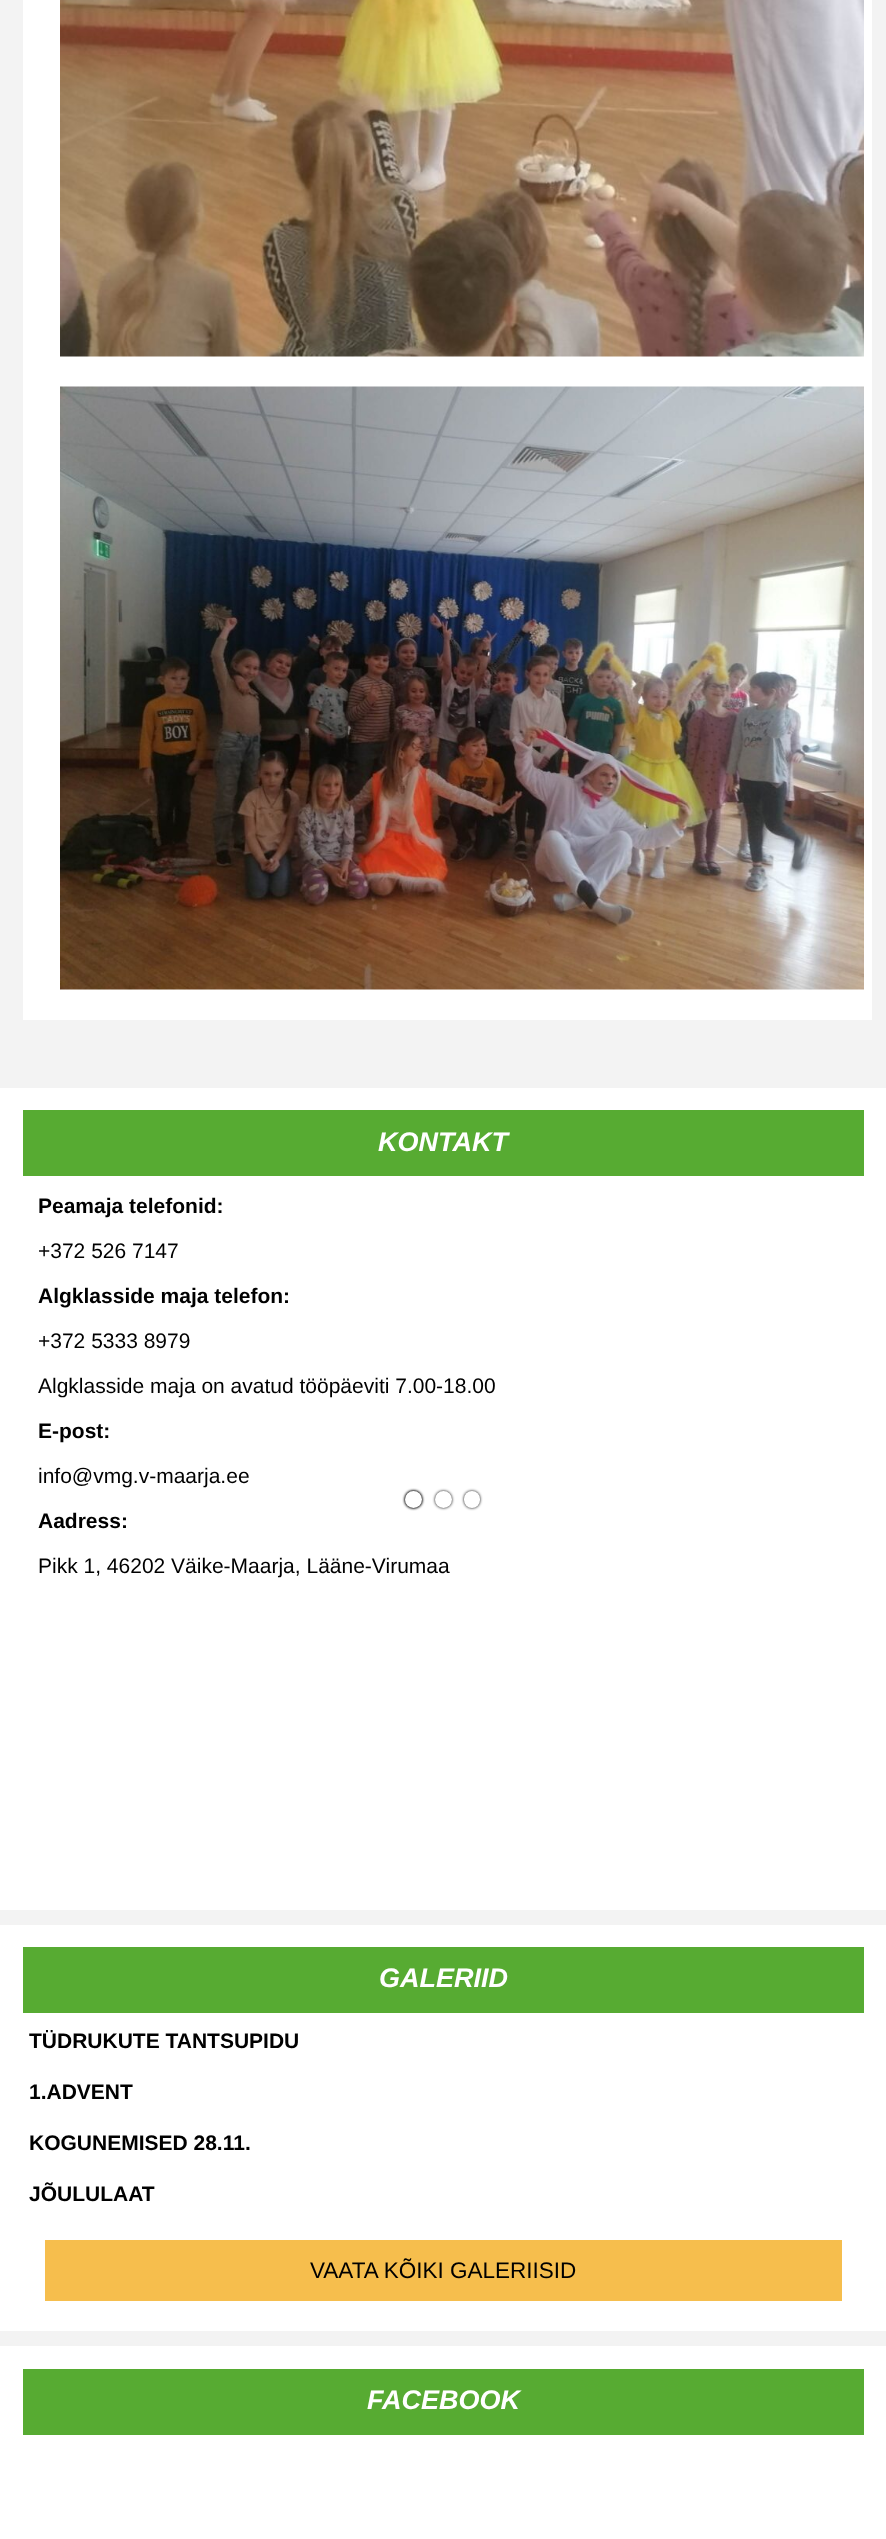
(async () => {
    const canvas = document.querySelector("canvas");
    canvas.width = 886;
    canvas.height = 2539;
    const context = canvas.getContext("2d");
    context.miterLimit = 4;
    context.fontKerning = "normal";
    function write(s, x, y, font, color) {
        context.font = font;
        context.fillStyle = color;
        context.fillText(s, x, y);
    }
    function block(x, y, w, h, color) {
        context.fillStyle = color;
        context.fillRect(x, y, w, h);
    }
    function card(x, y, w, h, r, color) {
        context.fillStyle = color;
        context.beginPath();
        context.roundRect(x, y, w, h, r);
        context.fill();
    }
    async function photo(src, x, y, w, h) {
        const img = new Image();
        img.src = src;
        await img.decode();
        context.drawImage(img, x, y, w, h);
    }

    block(0, 0, 886, 2539, "rgb(243, 243, 243)");
    block(23, 0, 849, 1020, "rgb(255, 255, 255)");
    await photo("media/1.png", 60, 0, 804, 357);
    await photo("media/2.png", 60, 386, 804, 604);
    block(0, 1088, 886, 822, "rgb(255, 255, 255)");
    block(23, 1110, 841, 66, "rgb(87, 171, 50)");
    write("KONTAKT", 378, 1151, "italic bold 27px Liberation Sans", "rgb(255, 255, 255)");
    write("Peamaja telefonid:", 38, 1213, "bold 21px Liberation Sans", "rgb(0, 0, 0)");
    write("+372 526 7147", 38, 1258, "21px Liberation Sans", "rgb(0, 0, 0)");
    write("Algklasside maja telefon:", 38, 1303, "bold 21px Liberation Sans", "rgb(0, 0, 0)");
    write("+372 5333 8979", 38, 1348, "21px Liberation Sans", "rgb(0, 0, 0)");
    write("Algklasside maja on avatud tööpäeviti 7.00-18.00", 38, 1393, "21px Liberation Sans", "rgb(0, 0, 0)");
    write("E-post:", 38, 1438, "bold 21px Liberation Sans", "rgb(0, 0, 0)");
    write("info@vmg.v-maarja.ee", 38, 1483, "21px Liberation Sans", "rgb(0, 0, 0)");
    write("Aadress:", 38, 1528, "bold 21px Liberation Sans", "rgb(0, 0, 0)");
    write("Pikk 1, 46202 Väike-Maarja, Lääne-Virumaa", 38, 1573, "21px Liberation Sans", "rgb(0, 0, 0)");
    context.filter = "blur(1.5px)";
    context.beginPath();
    context.roundRect(405, 1491, 17, 17, 8.5);
    context.fill();
    context.filter = "none";
    context.filter = "blur(1.5px)";
    context.beginPath();
    context.roundRect(405, 1491, 17, 17, 8.5);
    context.fill();
    context.filter = "none";
    context.fillStyle = "rgb(255, 255, 255)";
    context.beginPath();
    context.arc(413.5, 1499.5, 8.5, 0, Math.PI * 2);
    context.fill();
    context.fillStyle = "rgb(0, 0, 0)";
    context.filter = "blur(1.5px)";
    context.beginPath();
    context.roundRect(435, 1491, 17, 17, 8.5);
    context.fill();
    context.filter = "none";
    context.fillStyle = "rgb(255, 255, 255)";
    context.beginPath();
    context.arc(443.5, 1499.5, 8.5, 0, Math.PI * 2);
    context.fill();
    context.fillStyle = "rgb(0, 0, 0)";
    context.filter = "blur(1.5px)";
    context.beginPath();
    context.roundRect(464, 1491, 16, 17, 8);
    context.fill();
    context.filter = "none";
    card(464, 1491, 16, 17, 8, "rgb(255, 255, 255)");
    block(0, 1925, 886, 406, "rgb(255, 255, 255)");
    block(23, 1947, 841, 66, "rgb(87, 171, 50)");
    write("GALERIID", 379, 1987, "italic bold 27px Liberation Sans", "rgb(255, 255, 255)");
    write("TÜDRUKUTE TANTSUPIDU", 29, 2048, "bold 21px Liberation Sans", "rgb(0, 0, 0)");
    write("1.ADVENT", 29, 2099, "bold 21px Liberation Sans", "rgb(0, 0, 0)");
    write("KOGUNEMISED 28.11.", 29, 2150, "bold 21px Liberation Sans", "rgb(0, 0, 0)");
    write("JÕULULAAT", 29, 2201, "bold 21px Liberation Sans", "rgb(0, 0, 0)");
    block(45, 2240, 797, 61, "rgb(246, 190, 77)");
    write("VAATA KÕIKI GALERIISID", 310, 2278, "22.5px Liberation Sans", "rgb(0, 0, 0)");
    block(0, 2346, 886, 193, "rgb(255, 255, 255)");
    block(23, 2369, 841, 66, "rgb(87, 171, 50)");
    write("FACEBOOK", 367, 2409, "italic bold 27px Liberation Sans", "rgb(255, 255, 255)");
})();
